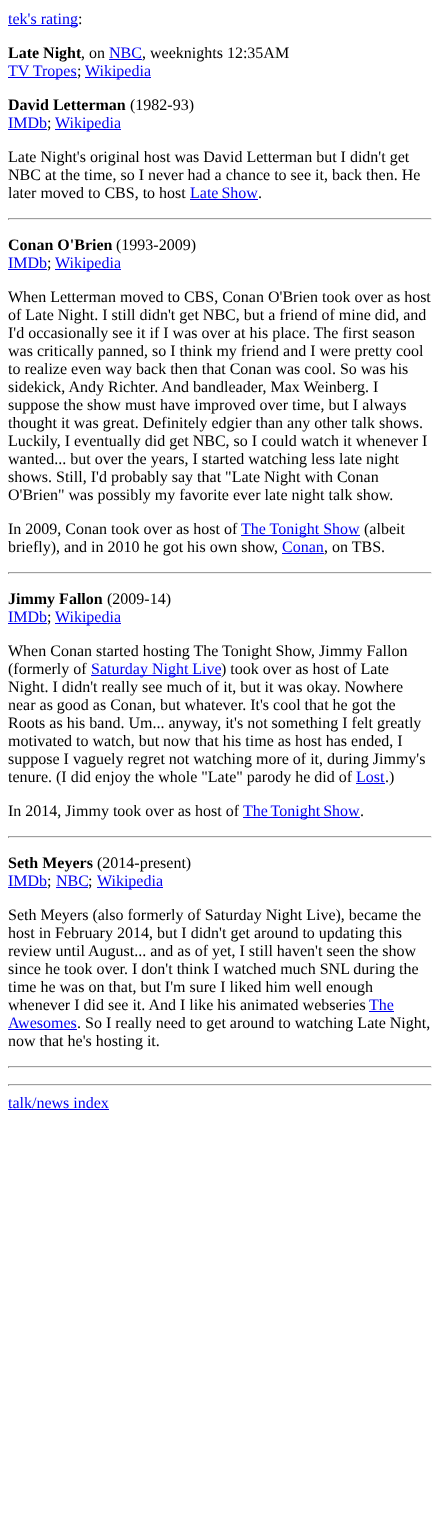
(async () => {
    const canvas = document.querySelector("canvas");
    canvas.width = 440;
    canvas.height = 1539;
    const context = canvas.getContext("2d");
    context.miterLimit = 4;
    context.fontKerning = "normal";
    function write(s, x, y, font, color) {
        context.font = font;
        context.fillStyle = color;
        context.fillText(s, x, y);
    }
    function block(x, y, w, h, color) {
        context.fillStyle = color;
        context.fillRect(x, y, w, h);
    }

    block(0, 0, 440, 1539, "rgb(255, 255, 255)");
    block(8, 25, 70, 1, "rgb(0, 0, 238)");
    write("tek's rating", 8, 24, "16px Liberation Serif", "rgb(0, 0, 238)");
    write(":", 78, 24, "16px Liberation Serif", "rgb(0, 0, 0)");
    write("Late Night", 8, 58, "bold 16px Liberation Serif", "rgb(0, 0, 0)");
    write(", on", 81, 58, "16px Liberation Serif", "rgb(0, 0, 0)");
    write("NBC", 109, 58, "16px Liberation Serif", "rgb(0, 0, 238)");
    block(109, 59, 33, 1, "rgb(0, 0, 238)");
    write(", weeknights 12:35AM", 142, 58, "16px Liberation Serif", "rgb(0, 0, 0)");
    block(8, 77, 69, 1, "rgb(0, 0, 238)");
    write("TV Tropes", 8, 76, "16px Liberation Serif", "rgb(0, 0, 238)");
    write(";", 77, 76, "16px Liberation Serif", "rgb(0, 0, 0)");
    block(85, 77, 66, 1, "rgb(0, 0, 238)");
    write("Wikipedia", 85, 76, "16px Liberation Serif", "rgb(0, 0, 238)");
    write("David Letterman", 8, 110, "bold 16px Liberation Serif", "rgb(0, 0, 0)");
    write("(1982-93)", 130, 110, "16px Liberation Serif", "rgb(0, 0, 0)");
    write("IMDb", 8, 128, "16px Liberation Serif", "rgb(0, 0, 238)");
    block(8, 129, 39, 1, "rgb(0, 0, 238)");
    write(";", 47, 128, "16px Liberation Serif", "rgb(0, 0, 0)");
    block(55, 129, 66, 1, "rgb(0, 0, 238)");
    write("Wikipedia", 55, 128, "16px Liberation Serif", "rgb(0, 0, 238)");
    write("Late Night's original host was David Letterman but I didn't get", 8, 162, "16px Liberation Serif", "rgb(0, 0, 0)");
    write("NBC at the time, so I never had a chance to see it, back then. He", 8, 180, "16px Liberation Serif", "rgb(0, 0, 0)");
    write("later moved to CBS, to host", 8, 198, "16px Liberation Serif", "rgb(0, 0, 0)");
    context.wordSpacing = "-1px";
    write("Late Show", 190, 198, "16px Liberation Serif", "rgb(0, 0, 238)");
    block(190, 199, 68, 1, "rgb(0, 0, 238)");
    context.wordSpacing = "0px";
    write(".", 258, 198, "16px Liberation Serif", "rgb(0, 0, 0)");
    block(8, 218, 424, 1, "rgb(159, 159, 159)");
    block(431, 218, 1, 2, "rgb(238, 238, 238)");
    block(8, 219, 424, 1, "rgb(238, 238, 238)");
    block(8, 218, 1, 2, "rgb(159, 159, 159)");
    write("Conan O'Brien", 8, 250, "bold 16px Liberation Serif", "rgb(0, 0, 0)");
    write("(1993-2009)", 116, 250, "16px Liberation Serif", "rgb(0, 0, 0)");
    write("IMDb", 8, 268, "16px Liberation Serif", "rgb(0, 0, 238)");
    block(8, 269, 39, 1, "rgb(0, 0, 238)");
    write(";", 47, 268, "16px Liberation Serif", "rgb(0, 0, 0)");
    block(55, 269, 66, 1, "rgb(0, 0, 238)");
    write("Wikipedia", 55, 268, "16px Liberation Serif", "rgb(0, 0, 238)");
    write("When Letterman moved to CBS, Conan O'Brien took over as host", 8, 302, "16px Liberation Serif", "rgb(0, 0, 0)");
    write("of Late Night. I still didn't get NBC, but a friend of mine did, and", 8, 320, "16px Liberation Serif", "rgb(0, 0, 0)");
    write("I'd occasionally see it if I was over at his place. The first season", 8, 338, "16px Liberation Serif", "rgb(0, 0, 0)");
    write("was critically panned, so I think my friend and I were pretty cool", 8, 356, "16px Liberation Serif", "rgb(0, 0, 0)");
    write("to realize even way back then that Conan was cool. So was his", 8, 374, "16px Liberation Serif", "rgb(0, 0, 0)");
    write("sidekick, Andy Richter. And bandleader, Max Weinberg. I", 8, 392, "16px Liberation Serif", "rgb(0, 0, 0)");
    write("suppose the show must have improved over time, but I always", 8, 410, "16px Liberation Serif", "rgb(0, 0, 0)");
    write("thought it was great. Definitely edgier than any other talk shows.", 8, 428, "16px Liberation Serif", "rgb(0, 0, 0)");
    write("Luckily, I eventually did get NBC, so I could watch it whenever I", 8, 446, "16px Liberation Serif", "rgb(0, 0, 0)");
    write("wanted... but over the years, I started watching less late night", 8, 464, "16px Liberation Serif", "rgb(0, 0, 0)");
    write("shows. Still, I'd probably say that \"Late Night with Conan", 8, 482, "16px Liberation Serif", "rgb(0, 0, 0)");
    write("O'Brien\" was possibly my favorite ever late night talk show.", 8, 500, "16px Liberation Serif", "rgb(0, 0, 0)");
    write("In 2009, Conan took over as host of", 8, 534, "16px Liberation Serif", "rgb(0, 0, 0)");
    block(241, 535, 119, 1, "rgb(0, 0, 238)");
    write("The Tonight Show", 241, 534, "16px Liberation Serif", "rgb(0, 0, 238)");
    write("(albeit", 364, 534, "16px Liberation Serif", "rgb(0, 0, 0)");
    write("briefly), and in 2010 he got his own show,", 8, 552, "16px Liberation Serif", "rgb(0, 0, 0)");
    write("Conan", 282, 552, "16px Liberation Serif", "rgb(0, 0, 238)");
    block(282, 553, 42, 1, "rgb(0, 0, 238)");
    write(", on TBS.", 324, 552, "16px Liberation Serif", "rgb(0, 0, 0)");
    block(8, 572, 424, 1, "rgb(159, 159, 159)");
    block(431, 572, 1, 2, "rgb(238, 238, 238)");
    block(8, 573, 424, 1, "rgb(238, 238, 238)");
    block(8, 572, 1, 2, "rgb(159, 159, 159)");
    write("Jimmy Fallon", 8, 604, "bold 16px Liberation Serif", "rgb(0, 0, 0)");
    write("(2009-14)", 107, 604, "16px Liberation Serif", "rgb(0, 0, 0)");
    write("IMDb", 8, 622, "16px Liberation Serif", "rgb(0, 0, 238)");
    block(8, 623, 39, 1, "rgb(0, 0, 238)");
    write(";", 47, 622, "16px Liberation Serif", "rgb(0, 0, 0)");
    block(55, 623, 66, 1, "rgb(0, 0, 238)");
    write("Wikipedia", 55, 622, "16px Liberation Serif", "rgb(0, 0, 238)");
    write("When Conan started hosting The Tonight Show, Jimmy Fallon", 8, 656, "16px Liberation Serif", "rgb(0, 0, 0)");
    write("(formerly of", 8, 674, "16px Liberation Serif", "rgb(0, 0, 0)");
    block(91, 675, 130, 1, "rgb(0, 0, 238)");
    write("Saturday Night Live", 91, 674, "16px Liberation Serif", "rgb(0, 0, 238)");
    write(") took over as host of Late", 221, 674, "16px Liberation Serif", "rgb(0, 0, 0)");
    write("Night. I didn't really see much of it, but it was okay. Nowhere", 8, 692, "16px Liberation Serif", "rgb(0, 0, 0)");
    write("near as good as Conan, but whatever. It's cool that he got the", 8, 710, "16px Liberation Serif", "rgb(0, 0, 0)");
    write("Roots as his band. Um... anyway, it's not something I felt greatly", 8, 728, "16px Liberation Serif", "rgb(0, 0, 0)");
    write("motivated to watch, but now that his time as host has ended, I", 8, 746, "16px Liberation Serif", "rgb(0, 0, 0)");
    write("suppose I vaguely regret not watching more of it, during Jimmy's", 8, 764, "16px Liberation Serif", "rgb(0, 0, 0)");
    write("tenure. (I did enjoy the whole \"Late\" parody he did of", 8, 782, "16px Liberation Serif", "rgb(0, 0, 0)");
    write("Lost", 356, 782, "16px Liberation Serif", "rgb(0, 0, 238)");
    block(356, 783, 29, 1, "rgb(0, 0, 238)");
    write(".)", 385, 782, "16px Liberation Serif", "rgb(0, 0, 0)");
    write("In 2014, Jimmy took over as host of", 8, 816, "16px Liberation Serif", "rgb(0, 0, 0)");
    block(243, 817, 117, 1, "rgb(0, 0, 238)");
    context.wordSpacing = "-1px";
    write("The Tonight Show", 243, 816, "16px Liberation Serif", "rgb(0, 0, 238)");
    context.wordSpacing = "0px";
    write(".", 360, 816, "16px Liberation Serif", "rgb(0, 0, 0)");
    block(8, 836, 424, 1, "rgb(159, 159, 159)");
    block(431, 836, 1, 2, "rgb(238, 238, 238)");
    block(8, 837, 424, 1, "rgb(238, 238, 238)");
    block(8, 836, 1, 2, "rgb(159, 159, 159)");
    write("Seth Meyers", 8, 868, "bold 16px Liberation Serif", "rgb(0, 0, 0)");
    write("(2014-present)", 97, 868, "16px Liberation Serif", "rgb(0, 0, 0)");
    write("IMDb", 8, 886, "16px Liberation Serif", "rgb(0, 0, 238)");
    block(8, 887, 39, 1, "rgb(0, 0, 238)");
    write(";", 47, 886, "16px Liberation Serif", "rgb(0, 0, 0)");
    write("NBC", 56, 886, "16px Liberation Serif", "rgb(0, 0, 238)");
    block(56, 887, 32, 1, "rgb(0, 0, 238)");
    write(";", 88, 886, "16px Liberation Serif", "rgb(0, 0, 0)");
    block(97, 887, 66, 1, "rgb(0, 0, 238)");
    write("Wikipedia", 97, 886, "16px Liberation Serif", "rgb(0, 0, 238)");
    write("Seth Meyers (also formerly of Saturday Night Live), became the", 8, 920, "16px Liberation Serif", "rgb(0, 0, 0)");
    write("host in February 2014, but I didn't get around to updating this", 8, 938, "16px Liberation Serif", "rgb(0, 0, 0)");
    write("review until August... and as of yet, I still haven't seen the show", 8, 956, "16px Liberation Serif", "rgb(0, 0, 0)");
    write("since he took over. I don't think I watched much SNL during the", 8, 974, "16px Liberation Serif", "rgb(0, 0, 0)");
    write("time he was on that, but I'm sure I liked him well enough", 8, 992, "16px Liberation Serif", "rgb(0, 0, 0)");
    write("whenever I did see it. And I like his animated webseries", 8, 1010, "16px Liberation Serif", "rgb(0, 0, 0)");
    write("The", 369, 1010, "16px Liberation Serif", "rgb(0, 0, 238)");
    block(369, 1011, 25, 1, "rgb(0, 0, 238)");
    write("Awesomes", 8, 1028, "16px Liberation Serif", "rgb(0, 0, 238)");
    block(8, 1029, 69, 1, "rgb(0, 0, 238)");
    write(". So I really need to get around to watching Late Night,", 77, 1028, "16px Liberation Serif", "rgb(0, 0, 0)");
    write("now that he's hosting it.", 8, 1046, "16px Liberation Serif", "rgb(0, 0, 0)");
    block(8, 1066, 424, 1, "rgb(159, 159, 159)");
    block(431, 1066, 1, 2, "rgb(238, 238, 238)");
    block(8, 1067, 424, 1, "rgb(238, 238, 238)");
    block(8, 1066, 1, 2, "rgb(159, 159, 159)");
    block(8, 1084, 424, 1, "rgb(159, 159, 159)");
    block(431, 1084, 1, 2, "rgb(238, 238, 238)");
    block(8, 1085, 424, 1, "rgb(238, 238, 238)");
    block(8, 1084, 1, 2, "rgb(159, 159, 159)");
    write("talk/news index", 8, 1108, "16px Liberation Serif", "rgb(0, 0, 238)");
    block(8, 1109, 101, 1, "rgb(0, 0, 238)");
})();
